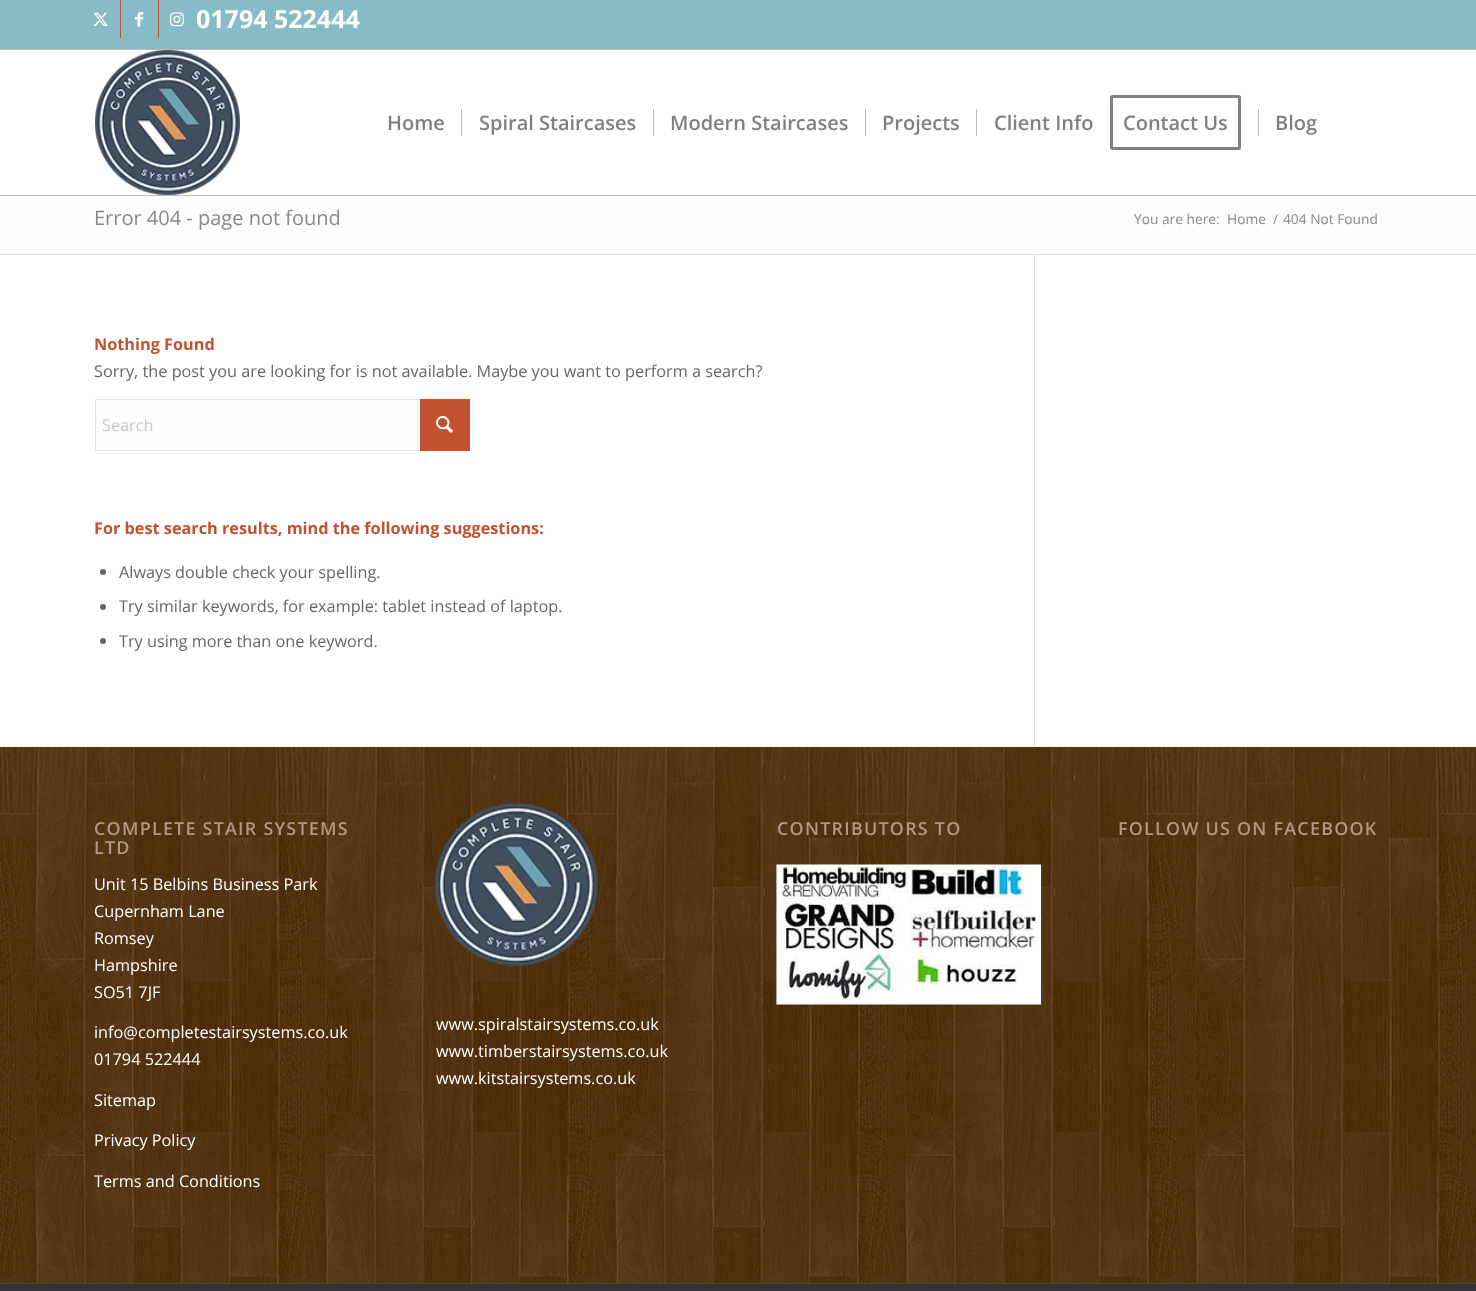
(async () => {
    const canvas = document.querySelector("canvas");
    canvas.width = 1476;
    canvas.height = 1291;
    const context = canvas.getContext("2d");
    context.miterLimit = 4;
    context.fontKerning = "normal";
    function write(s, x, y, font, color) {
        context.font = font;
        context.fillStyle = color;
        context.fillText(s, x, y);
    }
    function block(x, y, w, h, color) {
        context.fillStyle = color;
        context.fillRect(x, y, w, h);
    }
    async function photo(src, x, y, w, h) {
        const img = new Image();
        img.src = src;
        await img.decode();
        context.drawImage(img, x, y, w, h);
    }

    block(0, 0, 1476, 1291, "rgb(255, 255, 255)");
    block(0, 0, 1476, 49, "rgb(136, 187, 200)");
    block(0, 49, 1476, 1, "rgb(193, 186, 176)");
    block(120, 0, 1, 38, "rgb(195, 81, 47)");
    await photo("media/1.png", 93, 12, 15, 14);
    block(158, 0, 1, 38, "rgb(195, 81, 47)");
    await photo("media/2.png", 135, 12, 9, 15);
    await photo("media/3.png", 170, 12, 14, 15);
    write("01794 522444", 196, 28, "bold 25px Open Sans", "rgb(255, 255, 255)");
    block(0, 195, 1476, 1, "rgb(193, 186, 176)");
    await photo("media/4.png", 95, 50, 145, 145);
    write("Home", 387, 130, "600 20px Open Sans", "rgb(128, 128, 128)");
    write("Spiral Staircases", 479, 130, "600 20px Open Sans", "rgb(128, 128, 128)");
    block(461, 109, 1, 27, "rgb(193, 186, 176)");
    write("Modern Staircases", 670, 130, "600 20px Open Sans", "rgb(128, 128, 128)");
    block(653, 109, 1, 27, "rgb(193, 186, 176)");
    write("Projects", 882, 130, "600 20px Open Sans", "rgb(128, 128, 128)");
    block(865, 109, 1, 27, "rgb(193, 186, 176)");
    write("Client Info", 994, 130, "600 20px Open Sans", "rgb(128, 128, 128)");
    block(976, 109, 1, 27, "rgb(193, 186, 176)");
    context.beginPath();
    context.roundRect(1111.5, 96.5, 128, 52, 1);
    context.strokeStyle = "rgb(128, 128, 128)";
    context.lineWidth = 3;
    context.stroke();
    write("Contact Us", 1123, 130, "600 20px Open Sans", "rgb(128, 128, 128)");
    write("Blog", 1275, 130, "600 20px Open Sans", "rgb(128, 128, 128)");
    block(1258, 109, 1, 27, "rgb(193, 186, 176)");
    block(0, 196, 1476, 58, "rgb(252, 252, 252)");
    write("Error 404 - page not found", 94, 225, "20px Open Sans", "rgb(136, 136, 136)");
    write("You are here:", 1134, 224, "13.75px Open Sans", "rgb(136, 136, 136)");
    write("Home", 1227, 224, "13.75px Open Sans", "rgb(136, 136, 136)");
    write("/", 1273, 224, "13.75px Open Sans", "rgb(136, 136, 136)");
    write("404 Not Found", 1283, 224, "13.75px Open Sans", "rgb(136, 136, 136)");
    block(0, 254, 1476, 1, "rgb(225, 225, 225)");
    block(1034, 255, 1, 491, "rgb(225, 225, 225)");
    write("Nothing Found", 94, 350, "bold 16.25px Open Sans", "rgb(195, 81, 47)");
    write("Sorry, the post you are looking for is not available. Maybe you want to perform a search?", 94, 377, "16.25px Open Sans", "rgb(102, 102, 102)");
    block(96, 400, 324, 50, "rgb(252, 252, 252)");
    context.strokeStyle = "rgb(225, 225, 225)";
    context.lineWidth = 1;
    context.strokeRect(95.5, 399.5, 374, 51);
    block(420, 399, 50, 52, "rgb(195, 81, 47)");
    context.save();
    context.beginPath();
    context.rect(103, 414, 291, 22);
    context.clip();
    write("Search", 102, 431, "16.25px Open Sans", "rgb(199, 199, 199)");
    context.restore();
    await photo("media/5.png", 436, 416, 17, 17);
    write("For best search results, mind the following suggestions:", 94, 534, "bold 16.25px Open Sans", "rgb(195, 81, 47)");
    context.fillStyle = "rgb(102, 102, 102)";
    context.beginPath();
    context.arc(103, 572, 3, 0, Math.PI * 2);
    context.fill();
    write("Always double check your spelling.", 119, 578, "16.25px Open Sans", "rgb(102, 102, 102)");
    context.beginPath();
    context.arc(103, 607, 3, 0, Math.PI * 2);
    context.fill();
    write("Try similar keywords, for example: tablet instead of laptop.", 119, 612, "16.25px Open Sans", "rgb(102, 102, 102)");
    context.beginPath();
    context.arc(103, 641, 3, 0, Math.PI * 2);
    context.fill();
    write("Try using more than one keyword.", 119, 647, "16.25px Open Sans", "rgb(102, 102, 102)");
    block(0, 747, 1476, 536, "rgb(71, 37, 0)");
    await photo("media/6.png", 0, 747, 1476, 536);
    context.letterSpacing = "1.25px";
    write("COMPLETE STAIR SYSTEMS", 94, 835, "600 17.9px Open Sans", "rgb(175, 152, 133)");
    write("LTD", 94, 854, "600 17.9px Open Sans", "rgb(175, 152, 133)");
    context.letterSpacing = "0px";
    write("Unit 15 Belbins Business Park", 94, 890, "16.25px Open Sans", "rgb(255, 255, 255)");
    write("Cupernham Lane", 94, 917, "16.25px Open Sans", "rgb(255, 255, 255)");
    write("Romsey", 94, 944, "16.25px Open Sans", "rgb(255, 255, 255)");
    write("Hampshire", 94, 971, "16.25px Open Sans", "rgb(255, 255, 255)");
    write("SO51 7JF", 94, 998, "16.25px Open Sans", "rgb(255, 255, 255)");
    write("info@completestairsystems.co.uk", 94, 1038, "16.25px Open Sans", "rgb(255, 255, 255)");
    write("01794 522444", 94, 1065, "16.25px Open Sans", "rgb(255, 255, 255)");
    write("Sitemap", 94, 1106, "16.25px Open Sans", "rgb(255, 255, 255)");
    write("Privacy Policy", 94, 1146, "16.25px Open Sans", "rgb(255, 255, 255)");
    write("Terms and Conditions", 94, 1187, "16.25px Open Sans", "rgb(255, 255, 255)");
    context.letterSpacing = "1.25px";
    write("CONTRIBUTORS TO", 777, 835, "600 17.9px Open Sans", "rgb(175, 152, 133)");
    await photo("media/7.png", 776, 864, 266, 141);
    write("FOLLOW US ON FACEBOOK", 1118, 835, "600 17.9px Open Sans", "rgb(175, 152, 133)");
    await photo("media/8.png", 435, 803, 163, 163);
    context.letterSpacing = "0px";
    write("www.spiralstairsystems.co.uk", 436, 1030, "16.25px Open Sans", "rgb(255, 255, 255)");
    write("www.timberstairsystems.co.uk", 436, 1057, "16.25px Open Sans", "rgb(255, 255, 255)");
    write("www.kitstairsystems.co.uk", 436, 1084, "16.25px Open Sans", "rgb(255, 255, 255)");
    block(0, 1284, 1476, 7, "rgb(51, 51, 51)");
    block(0, 1283, 1476, 1, "rgb(68, 68, 68)");
})();
